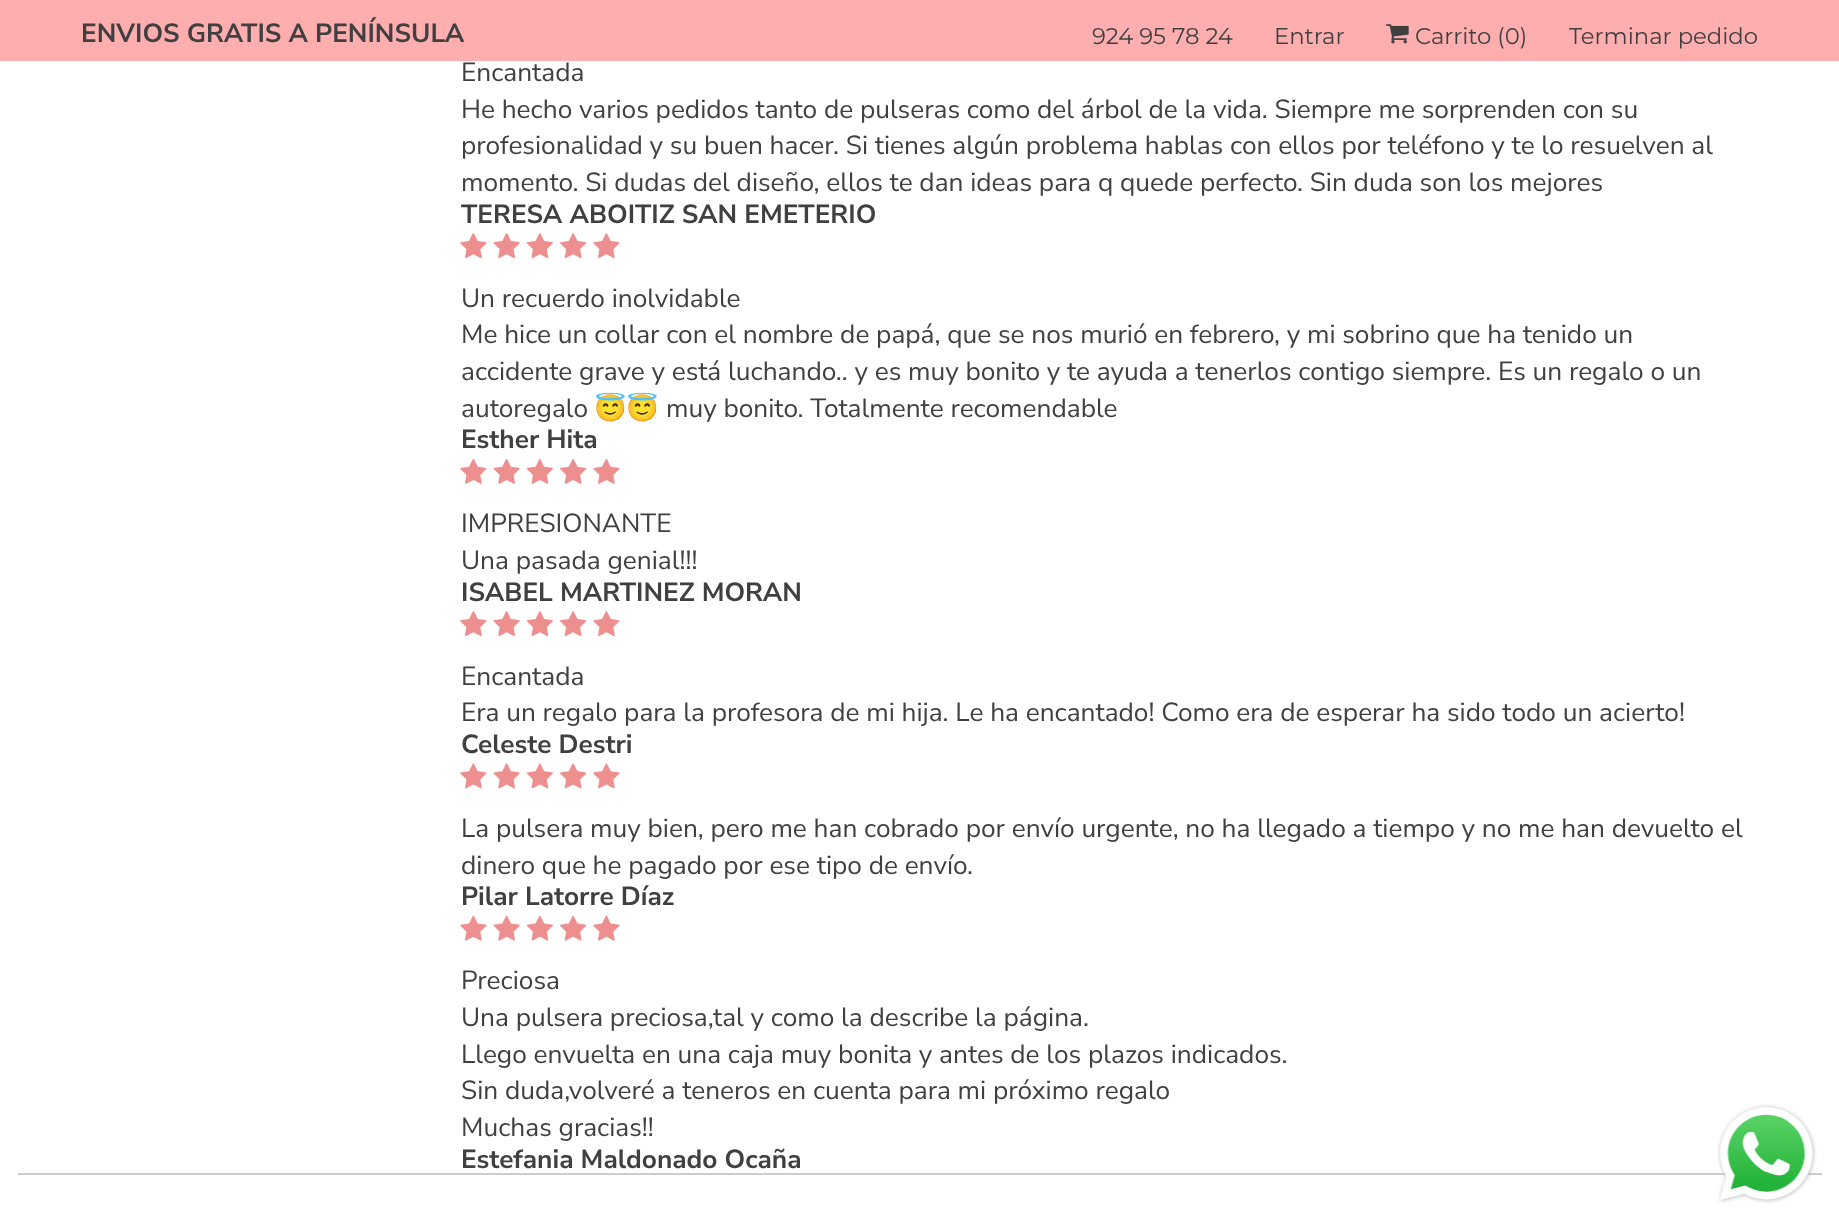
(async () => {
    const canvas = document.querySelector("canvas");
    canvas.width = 1839;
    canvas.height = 1226;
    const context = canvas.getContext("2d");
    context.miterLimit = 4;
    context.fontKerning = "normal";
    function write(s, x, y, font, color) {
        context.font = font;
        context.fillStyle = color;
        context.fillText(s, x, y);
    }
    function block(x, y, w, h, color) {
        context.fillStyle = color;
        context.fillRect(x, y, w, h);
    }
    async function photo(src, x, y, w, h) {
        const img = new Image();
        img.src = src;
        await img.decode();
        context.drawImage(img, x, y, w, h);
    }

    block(0, 0, 1839, 1226, "rgb(255, 255, 255)");
    block(0, 0, 1839, 61, "rgb(255, 174, 176)");
    write("ENVIOS GRATIS A PENÍNSULA", 81, 42, "bold 26.25px Nunito Sans", "rgb(64, 64, 64)");
    write("924 95 78 24", 1092, 44, "22.75px Montserrat", "rgb(64, 64, 64)");
    write("Entrar", 1274, 44, "22.75px Montserrat", "rgb(64, 64, 64)");
    await photo("media/1.png", 1386, 24, 23, 20);
    write("Carrito (0)", 1415, 44, "22.75px Montserrat", "rgb(64, 64, 64)");
    write("Terminar pedido", 1569, 44, "22.75px Montserrat", "rgb(64, 64, 64)");
    write("Encantada", 461, 81, "26.25px Nunito Sans", "rgb(64, 64, 64)");
    write("He hecho varios pedidos tanto de pulseras como del árbol de la vida. Siempre me sorprenden con su", 461, 118, "26.25px Nunito Sans", "rgb(64, 64, 64)");
    write("profesionalidad y su buen hacer. Si tienes algún problema hablas con ellos por teléfono y te lo resuelven al", 461, 154, "26.25px Nunito Sans", "rgb(64, 64, 64)");
    write("momento. Si dudas del diseño, ellos te dan ideas para q quede perfecto. Sin duda son los mejores", 461, 191, "26.25px Nunito Sans", "rgb(64, 64, 64)");
    write("TERESA ABOITIZ SAN EMETERIO", 461, 223, "bold 26.25px Nunito Sans", "rgb(64, 64, 64)");
    await photo("media/2.png", 460, 233, 27, 26);
    await photo("media/3.png", 493, 233, 27, 26);
    await photo("media/4.png", 526, 233, 27, 26);
    await photo("media/5.png", 560, 233, 27, 26);
    await photo("media/2.png", 593, 233, 27, 26);
    write("Un recuerdo inolvidable", 461, 307, "26.25px Nunito Sans", "rgb(64, 64, 64)");
    write("Me hice un collar con el nombre de papá, que se nos murió en febrero, y mi sobrino que ha tenido un", 461, 343, "26.25px Nunito Sans", "rgb(64, 64, 64)");
    write("accidente grave y está luchando.. y es muy bonito y te ayuda a tenerlos contigo siempre. Es un regalo o un", 461, 380, "26.25px Nunito Sans", "rgb(64, 64, 64)");
    write("autoregalo", 461, 417, "26.25px Nunito Sans", "rgb(64, 64, 64)");
    write("😇😇", 594, 417, "26.25px Noto Color Emoji", "rgb(64, 64, 64)");
    write("muy bonito. Totalmente recomendable", 666, 417, "26.25px Nunito Sans", "rgb(64, 64, 64)");
    write("Esther Hita", 461, 448, "bold 26.25px Nunito Sans", "rgb(64, 64, 64)");
    await photo("media/6.png", 460, 459, 27, 25);
    await photo("media/7.png", 493, 459, 27, 25);
    await photo("media/8.png", 526, 459, 27, 25);
    await photo("media/9.png", 560, 459, 27, 25);
    await photo("media/6.png", 593, 459, 27, 25);
    write("IMPRESIONANTE", 461, 532, "26.25px Nunito Sans", "rgb(64, 64, 64)");
    write("Una pasada genial!!!", 461, 569, "26.25px Nunito Sans", "rgb(64, 64, 64)");
    write("ISABEL MARTINEZ MORAN", 461, 601, "bold 26.25px Nunito Sans", "rgb(64, 64, 64)");
    await photo("media/2.png", 460, 611, 27, 26);
    await photo("media/3.png", 493, 611, 27, 26);
    await photo("media/4.png", 526, 611, 27, 26);
    await photo("media/5.png", 560, 611, 27, 26);
    await photo("media/2.png", 593, 611, 27, 26);
    write("Encantada", 461, 685, "26.25px Nunito Sans", "rgb(64, 64, 64)");
    write("Era un regalo para la profesora de mi hija. Le ha encantado! Como era de esperar ha sido todo un acierto!", 461, 721, "26.25px Nunito Sans", "rgb(64, 64, 64)");
    write("Celeste Destri", 461, 753, "bold 26.25px Nunito Sans", "rgb(64, 64, 64)");
    await photo("media/10.png", 460, 763, 27, 26);
    await photo("media/11.png", 493, 763, 27, 26);
    await photo("media/12.png", 526, 763, 27, 26);
    await photo("media/13.png", 560, 763, 27, 26);
    await photo("media/10.png", 593, 763, 27, 26);
    write("La pulsera muy bien, pero me han cobrado por envío urgente, no ha llegado a tiempo y no me han devuelto el", 461, 837, "26.25px Nunito Sans", "rgb(64, 64, 64)");
    write("dinero que he pagado por ese tipo de envío.", 461, 874, "26.25px Nunito Sans", "rgb(64, 64, 64)");
    write("Pilar Latorre Díaz", 461, 905, "bold 26.25px Nunito Sans", "rgb(64, 64, 64)");
    await photo("media/14.png", 460, 915, 27, 26);
    await photo("media/15.png", 493, 915, 27, 26);
    await photo("media/16.png", 526, 915, 27, 26);
    await photo("media/17.png", 560, 915, 27, 26);
    await photo("media/14.png", 593, 915, 27, 26);
    write("Preciosa", 461, 989, "26.25px Nunito Sans", "rgb(64, 64, 64)");
    write("Una pulsera preciosa,tal y como la describe la página.", 461, 1026, "26.25px Nunito Sans", "rgb(64, 64, 64)");
    write("Llego envuelta en una caja muy bonita y antes de los plazos indicados.", 461, 1063, "26.25px Nunito Sans", "rgb(64, 64, 64)");
    write("Sin duda,volveré a teneros en cuenta para mi próximo regalo", 461, 1099, "26.25px Nunito Sans", "rgb(64, 64, 64)");
    write("Muchas gracias!!", 461, 1136, "26.25px Nunito Sans", "rgb(64, 64, 64)");
    write("Estefania Maldonado Ocaña", 461, 1168, "bold 26.25px Nunito Sans", "rgb(64, 64, 64)");
    block(18, 1173, 1804, 2, "rgb(205, 205, 205)");
    await photo("media/18.png", 1717, 1104, 100, 100);
})();
